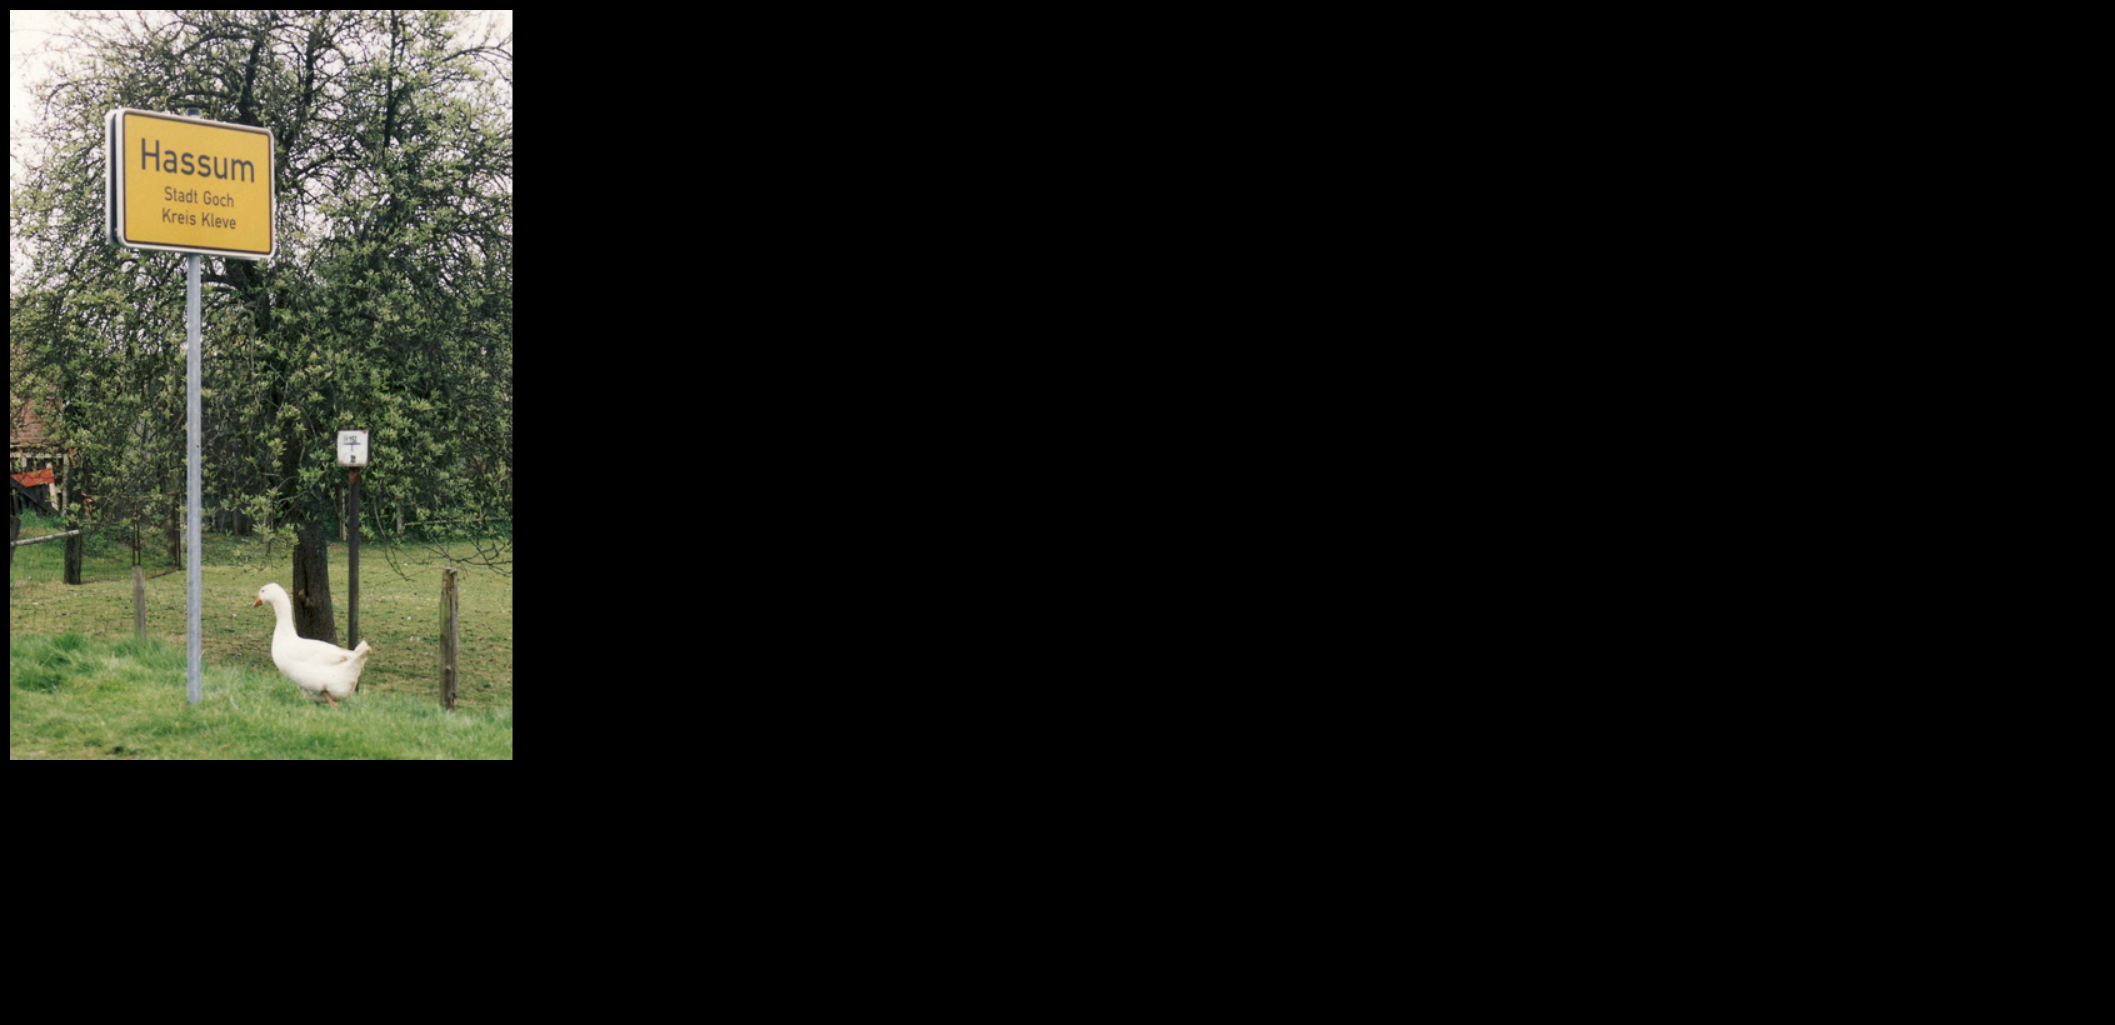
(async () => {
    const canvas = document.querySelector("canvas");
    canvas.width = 2115;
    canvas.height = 1025;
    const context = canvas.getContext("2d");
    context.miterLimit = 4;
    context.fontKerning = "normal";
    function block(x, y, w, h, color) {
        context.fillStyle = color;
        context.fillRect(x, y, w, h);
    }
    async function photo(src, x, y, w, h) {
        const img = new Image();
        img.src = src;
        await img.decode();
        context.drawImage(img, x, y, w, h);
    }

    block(0, 0, 2115, 1025, "rgb(0, 0, 0)");
    await photo("media/1.png", 10, 10, 503, 750);
})();
